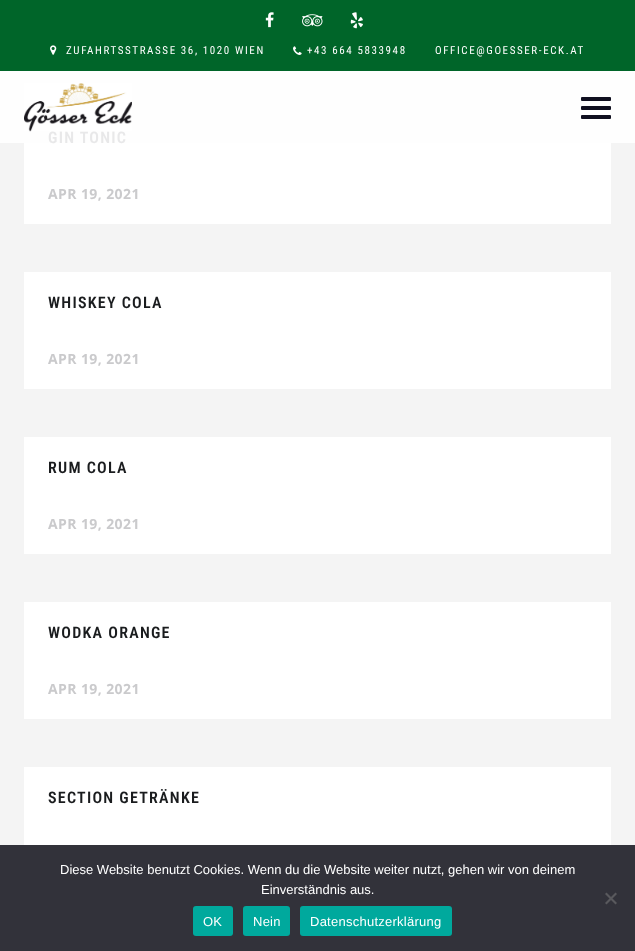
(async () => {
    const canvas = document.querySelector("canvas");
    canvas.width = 635;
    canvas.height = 951;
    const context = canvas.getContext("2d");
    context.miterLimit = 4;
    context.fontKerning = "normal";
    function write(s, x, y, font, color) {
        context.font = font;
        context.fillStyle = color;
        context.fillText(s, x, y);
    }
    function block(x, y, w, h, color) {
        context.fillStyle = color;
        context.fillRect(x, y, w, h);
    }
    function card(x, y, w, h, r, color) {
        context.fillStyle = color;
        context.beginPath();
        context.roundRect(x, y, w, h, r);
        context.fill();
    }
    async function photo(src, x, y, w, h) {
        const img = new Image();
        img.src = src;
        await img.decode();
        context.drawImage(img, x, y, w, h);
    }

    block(0, 0, 635, 951, "rgb(244, 244, 244)");
    block(0, 71, 635, 72, "rgb(254, 254, 254)");
    block(0, 0, 635, 71, "rgb(0, 101, 41)");
    await photo("media/1.png", 265, 12, 9, 16);
    await photo("media/2.png", 302, 14, 21, 13);
    await photo("media/3.png", 350, 12, 13, 17);
    await photo("media/4.png", 50, 45, 7, 10);
    context.letterSpacing = "1.6px";
    write("ZUFAHRTSSTRASSE 36, 1020 WIEN", 66, 54, "11px Roboto Condensed", "rgb(255, 255, 255)");
    await photo("media/5.png", 293, 46, 9, 9);
    write("+43 664 5833948", 307, 54, "11px Roboto Condensed", "rgb(255, 255, 255)");
    write("OFFICE@GOESSER-ECK.AT", 435, 54, "11px Roboto Condensed", "rgb(255, 255, 255)");
    block(24, 143, 587, 81, "rgb(255, 255, 255)");
    context.letterSpacing = "1.25px";
    write("GIN TONIC", 48, 143, "600 16px Roboto Condensed", "rgb(232, 232, 233)");
    await photo("media/6.png", 24, 83, 108, 49);
    card(581, 106, 30, 4, 1, "rgb(16, 16, 32)");
    card(581, 97, 30, 4, 1, "rgb(16, 16, 32)");
    card(581, 115, 30, 4, 1, "rgb(16, 16, 32)");
    context.letterSpacing = "0.4px";
    write("APR 19, 2021", 48, 199, "bold 14px Open Sans", "rgb(202, 202, 204)");
    block(24, 272, 587, 117, "rgb(255, 255, 255)");
    context.letterSpacing = "1.25px";
    write("WHISKEY COLA", 48, 308, "600 16px Roboto Condensed", "rgb(26, 28, 30)");
    context.letterSpacing = "0.4px";
    write("APR 19, 2021", 48, 364, "bold 14px Open Sans", "rgb(202, 202, 204)");
    block(24, 437, 587, 117, "rgb(255, 255, 255)");
    context.letterSpacing = "1.25px";
    write("RUM COLA", 48, 473, "600 16px Roboto Condensed", "rgb(26, 28, 30)");
    context.letterSpacing = "0.4px";
    write("APR 19, 2021", 48, 529, "bold 14px Open Sans", "rgb(202, 202, 204)");
    block(24, 602, 587, 117, "rgb(255, 255, 255)");
    context.letterSpacing = "1.25px";
    write("WODKA ORANGE", 48, 638, "600 16px Roboto Condensed", "rgb(26, 28, 30)");
    context.letterSpacing = "0.4px";
    write("APR 19, 2021", 48, 694, "bold 14px Open Sans", "rgb(202, 202, 204)");
    block(24, 767, 587, 78, "rgb(255, 255, 255)");
    context.letterSpacing = "1.25px";
    write("SECTION GETRÄNKE", 48, 803, "600 16px Roboto Condensed", "rgb(26, 28, 30)");
    block(0, 845, 635, 106, "rgb(50, 50, 58)");
    context.letterSpacing = "0px";
    write("Diese Website benutzt Cookies. Wenn du die Website weiter nutzt, gehen wir von deinem", 60, 874, "13px Liberation Sans", "rgb(255, 255, 255)");
    write("Einverständnis aus.", 261, 894, "13px Liberation Sans", "rgb(255, 255, 255)");
    context.fillStyle = "rgb(89, 89, 93)";
    context.beginPath();
    context.moveTo(615.5, 892.5);
    context.lineTo(617, 894);
    context.lineTo(606.5, 904.5);
    context.lineTo(605, 903);
    context.closePath();
    context.fill();
    context.beginPath();
    context.moveTo(605, 894);
    context.lineTo(606.5, 892.5);
    context.lineTo(617, 903);
    context.lineTo(615.5, 904.5);
    context.closePath();
    context.fill();
    card(193, 906, 40, 30, 3, "rgb(0, 169, 157)");
    context.letterSpacing = "0.25px";
    write("OK", 203, 926, "13px Liberation Sans", "rgb(255, 255, 255)");
    card(243, 906, 47, 30, 3, "rgb(0, 169, 157)");
    write("Nein", 253, 926, "13px Liberation Sans", "rgb(255, 255, 255)");
    card(300, 906, 152, 30, 3, "rgb(0, 169, 157)");
    write("Datenschutzerklärung", 310, 926, "13px Liberation Sans", "rgb(255, 255, 255)");
})();
